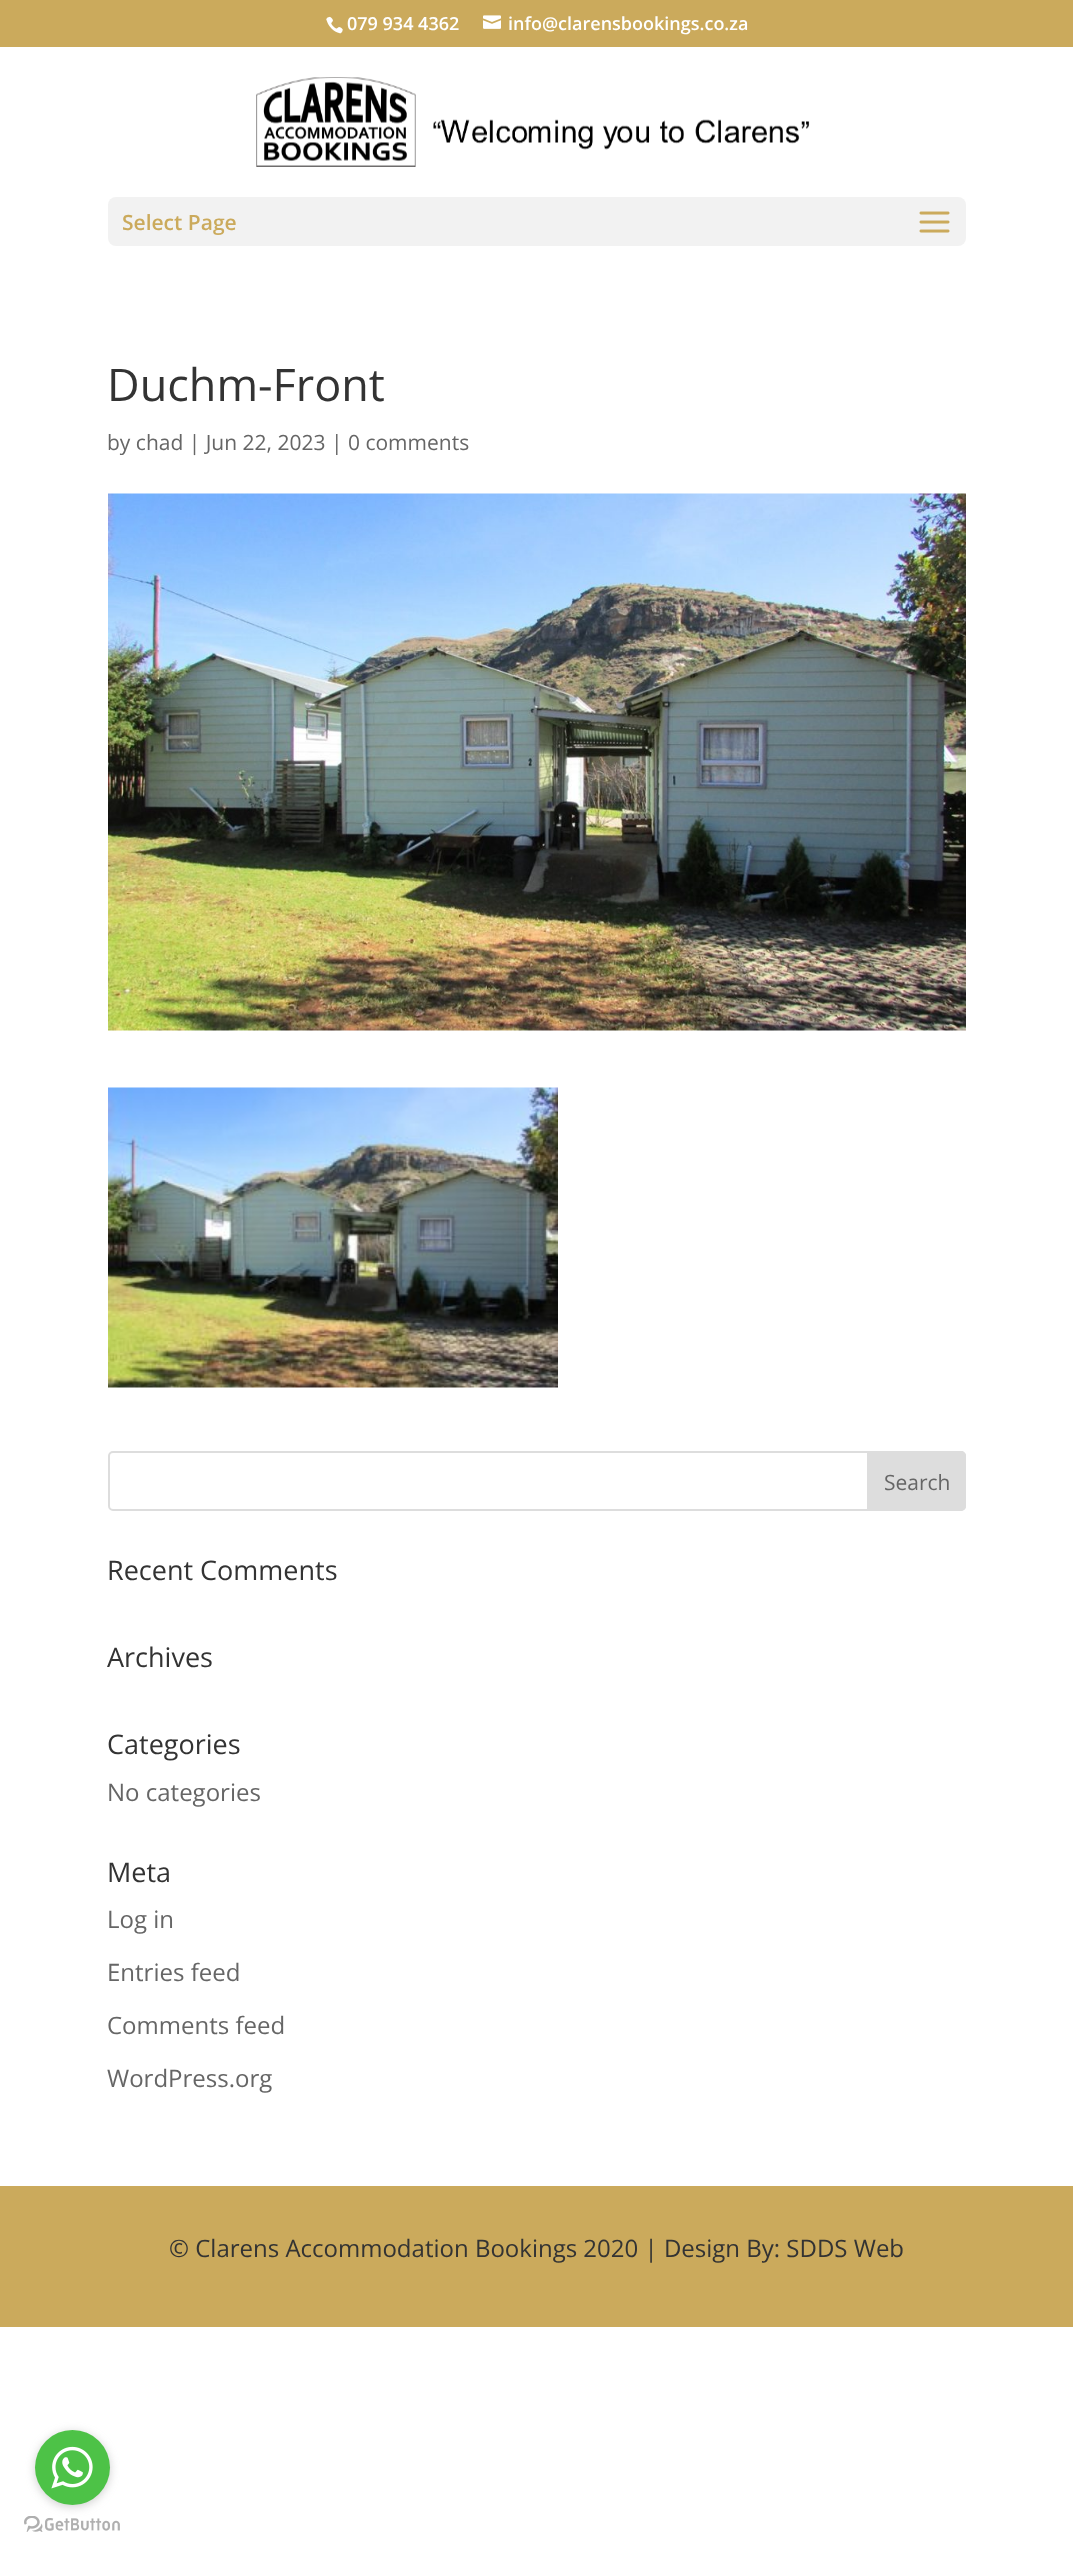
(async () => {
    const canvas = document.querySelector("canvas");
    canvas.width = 1073;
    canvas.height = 2556;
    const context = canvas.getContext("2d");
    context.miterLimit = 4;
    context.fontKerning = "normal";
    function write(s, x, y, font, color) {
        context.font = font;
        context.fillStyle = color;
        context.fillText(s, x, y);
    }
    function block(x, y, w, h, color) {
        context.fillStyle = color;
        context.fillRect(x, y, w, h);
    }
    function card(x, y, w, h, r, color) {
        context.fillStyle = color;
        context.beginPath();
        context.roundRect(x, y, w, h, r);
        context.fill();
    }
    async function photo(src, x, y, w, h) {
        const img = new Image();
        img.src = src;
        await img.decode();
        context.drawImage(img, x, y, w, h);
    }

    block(0, 0, 1073, 2556, "rgb(255, 255, 255)");
    block(0, 0, 1073, 47, "rgb(203, 170, 92)");
    await photo("media/1.png", 326, 16, 17, 18);
    write("079 934 4362", 347, 30, "600 18px Open Sans", "rgb(255, 255, 255)");
    await photo("media/2.png", 483, 15, 18, 14);
    write("info@clarensbookings.co.za", 508, 30, "600 18px Open Sans", "rgb(255, 255, 255)");
    await photo("media/3.png", 256, 77, 554, 90);
    card(108, 197, 858, 49, 8, "rgb(242, 242, 242)");
    write("Select Page", 122, 230, "600 21px Open Sans", "rgb(203, 170, 92)");
    await photo("media/4.png", 919, 211, 31, 22);
    write("Duchm-Front", 107, 401, "45px Open Sans", "rgb(51, 51, 51)");
    write("by chad | Jun 22, 2023 | 0 comments", 107, 450, "21px Open Sans", "rgb(102, 102, 102)");
    await photo("media/5.png", 108, 493, 858, 538);
    await photo("media/6.png", 108, 1087, 450, 301);
    context.beginPath();
    context.roundRect(109, 1452, 856, 58, 4);
    context.strokeStyle = "rgb(221, 221, 221)";
    context.lineWidth = 2;
    context.stroke();
    context.fillStyle = "rgb(221, 221, 221)";
    context.beginPath();
    context.roundRect(868, 1452, 97, 58, [0, 4, 4, 0]);
    context.fill();
    context.stroke();
    write("Search", 884, 1490, "21px Open Sans", "rgb(102, 102, 102)");
    write("Recent Comments", 107, 1580, "27px Open Sans", "rgb(51, 51, 51)");
    write("Archives", 107, 1667, "27px Open Sans", "rgb(51, 51, 51)");
    write("Categories", 107, 1754, "27px Open Sans", "rgb(51, 51, 51)");
    write("No categories", 107, 1801, "24px Open Sans", "rgb(102, 102, 102)");
    write("Meta", 107, 1882, "27px Open Sans", "rgb(51, 51, 51)");
    write("Log in", 107, 1928, "24px Open Sans", "rgb(102, 102, 102)");
    write("Entries feed", 107, 1981, "24px Open Sans", "rgb(102, 102, 102)");
    write("Comments feed", 107, 2034, "24px Open Sans", "rgb(102, 102, 102)");
    write("WordPress.org", 107, 2087, "24px Open Sans", "rgb(102, 102, 102)");
    block(0, 2186, 1073, 141, "rgb(203, 170, 92)");
    write("© Clarens Accommodation Bookings 2020 | Design By: SDDS Web", 169, 2257, "24px Open Sans", "rgb(51, 51, 51)");
    await photo("media/8.png", 24, 2516, 96, 16);
    context.fillStyle = "rgba(136, 136, 136, 0.4)";
    context.filter = "blur(5px)";
    context.beginPath();
    context.roundRect(35, 2432, 75, 75, 37.5);
    context.fill();
    context.filter = "none";
    context.fillStyle = "rgb(77, 194, 71)";
    context.beginPath();
    context.arc(72.5, 2467.5, 37.5, 0, Math.PI * 2);
    context.fill();
    await photo("media/7.png", 51, 2446, 42, 43);
})();
